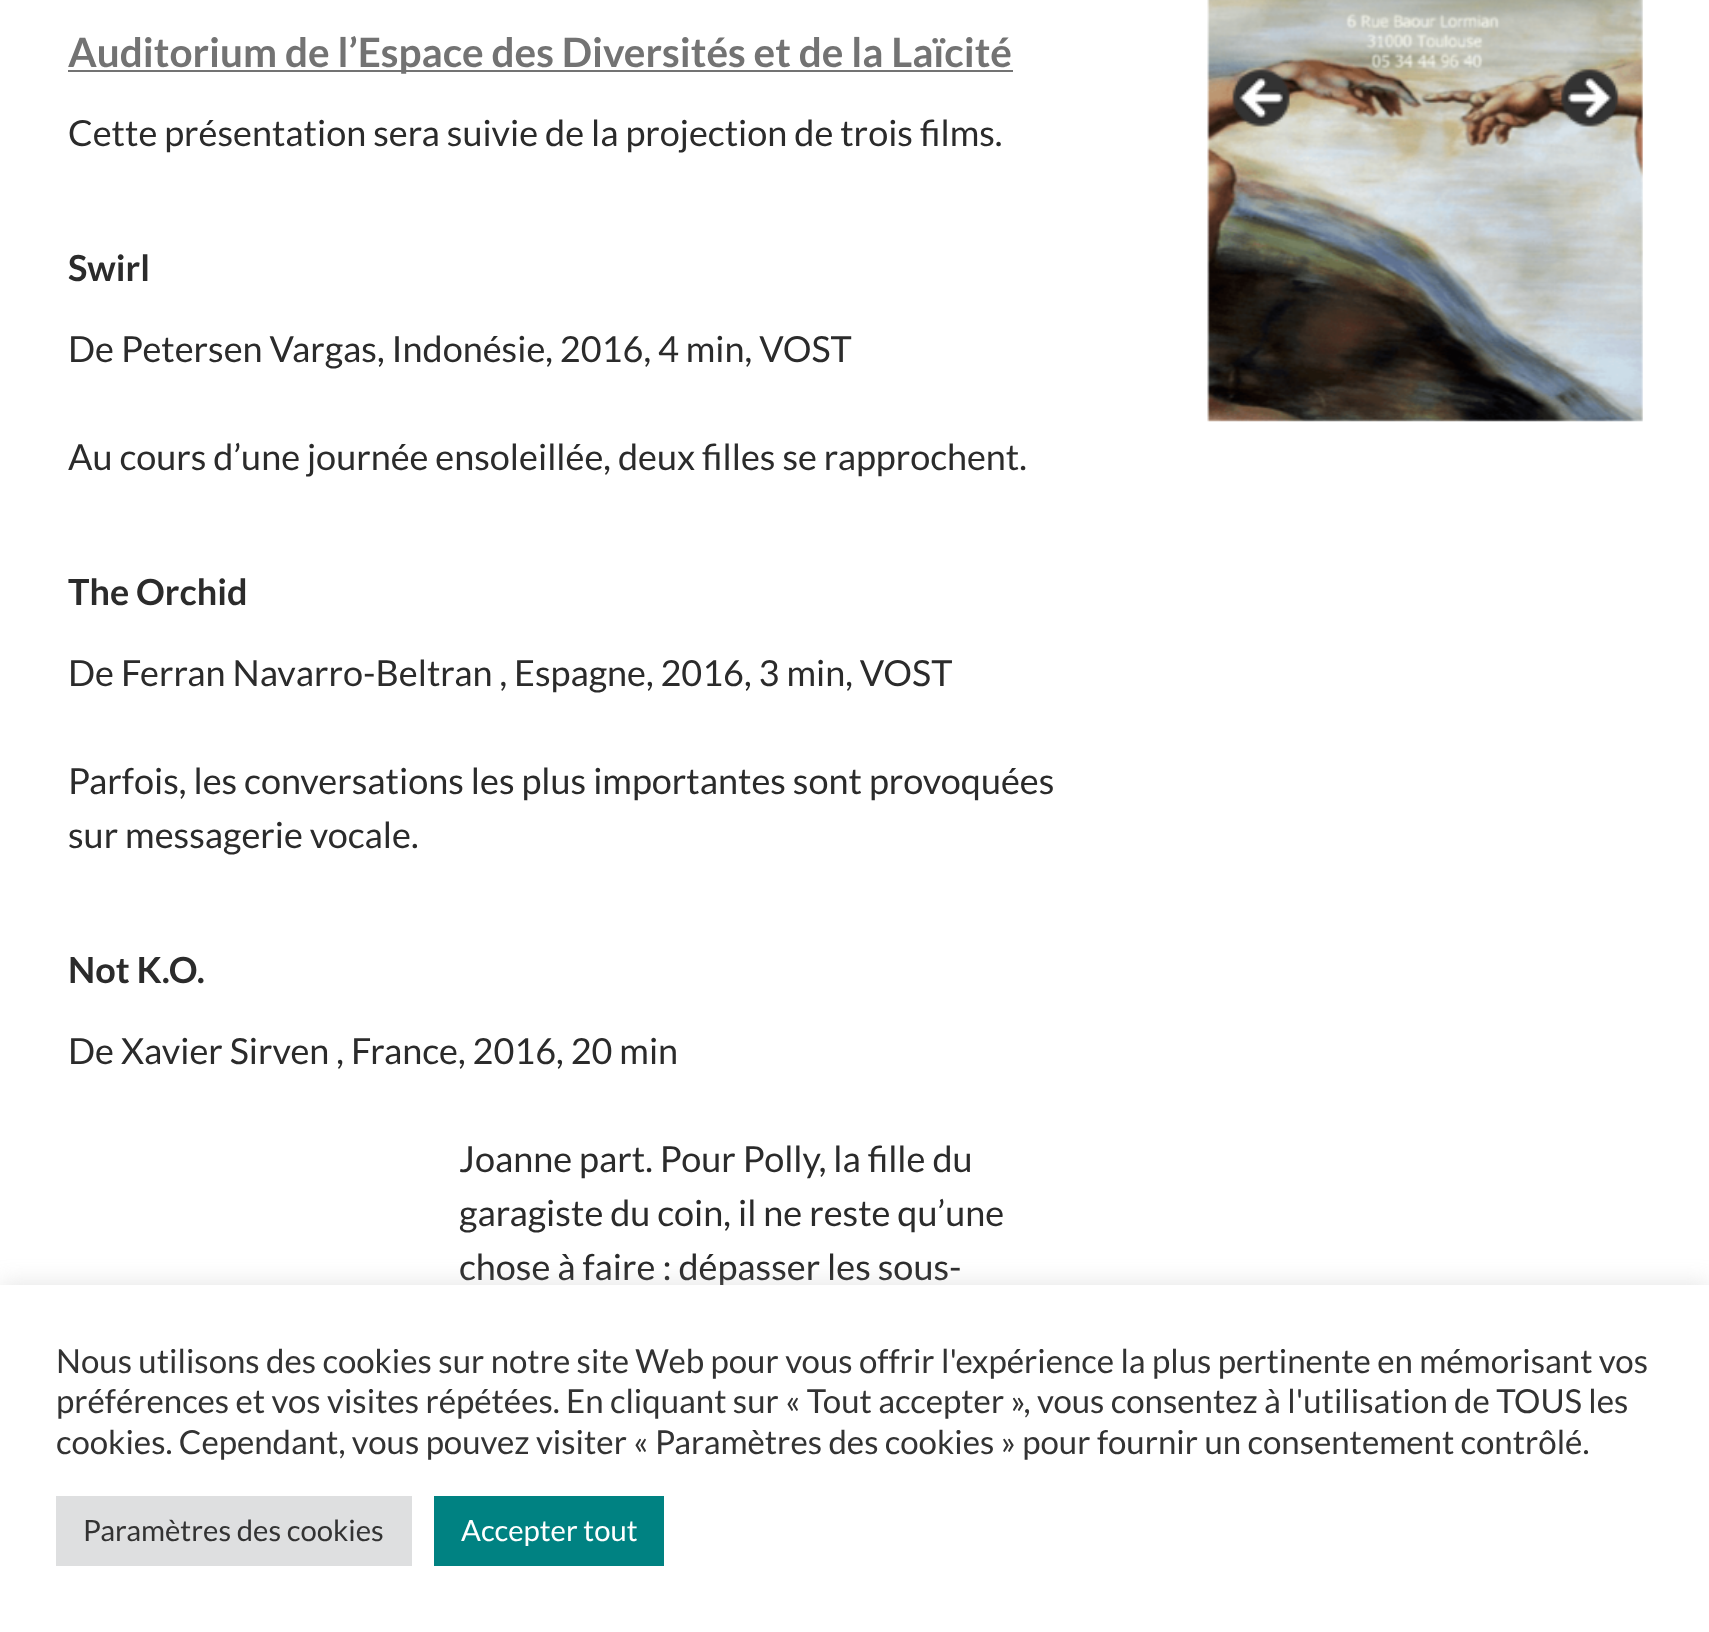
(async () => {
    const canvas = document.querySelector("canvas");
    canvas.width = 1709;
    canvas.height = 1632;
    const context = canvas.getContext("2d");
    context.miterLimit = 4;
    context.fontKerning = "normal";
    function write(s, x, y, font, color) {
        context.font = font;
        context.fillStyle = color;
        context.fillText(s, x, y);
    }
    function block(x, y, w, h, color) {
        context.fillStyle = color;
        context.fillRect(x, y, w, h);
    }
    async function photo(src, x, y, w, h) {
        const img = new Image();
        img.src = src;
        await img.decode();
        context.drawImage(img, x, y, w, h);
    }

    block(0, 0, 1709, 1632, "rgb(255, 255, 255)");
    block(68, 70, 945, 2, "rgb(115, 115, 115)");
    write("Auditorium de l’Espace des Diversités et de la Laïcité", 68, 67, "bold 40.5px Lato", "rgb(115, 115, 115)");
    write("Cette présentation sera suivie de la projection de trois films.", 68, 146, "36px Lato", "rgb(43, 43, 43)");
    write("Swirl", 68, 281, "bold 36px Lato", "rgb(43, 43, 43)");
    write("De Petersen Vargas, Indonésie, 2016, 4 min, VOST", 68, 362, "36px Lato", "rgb(43, 43, 43)");
    write("Au cours d’une journée ensoleillée, deux filles se rapprochent.", 68, 470, "36px Lato", "rgb(43, 43, 43)");
    write("The Orchid", 68, 605, "bold 36px Lato", "rgb(43, 43, 43)");
    write("De Ferran Navarro-Beltran , Espagne, 2016, 3 min, VOST", 68, 686, "36px Lato", "rgb(43, 43, 43)");
    write("Parfois, les conversations les plus importantes sont provoquées", 68, 794, "36px Lato", "rgb(43, 43, 43)");
    write("sur messagerie vocale.", 68, 848, "36px Lato", "rgb(43, 43, 43)");
    write("Not K.O.", 68, 983, "bold 36px Lato", "rgb(43, 43, 43)");
    write("De Xavier Sirven , France, 2016, 20 min", 68, 1064, "36px Lato", "rgb(43, 43, 43)");
    write("Joanne part. Pour Polly, la fille du", 459, 1172, "36px Lato", "rgb(43, 43, 43)");
    write("garagiste du coin, il ne reste qu’une", 459, 1226, "36px Lato", "rgb(43, 43, 43)");
    write("chose à faire : dépasser les sous-", 459, 1280, "36px Lato", "rgb(43, 43, 43)");
    await photo("media/1.png", 1207, 0, 436, 422);
    await photo("media/2.png", 1232, 69, 58, 58);
    await photo("media/3.png", 1561, 69, 58, 58);
    context.fillStyle = "rgba(172, 171, 171, 0.3)";
    context.filter = "blur(11px)";
    context.beginPath();
    context.rect(0, 1283, 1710, 348);
    context.fill();
    context.filter = "none";
    block(0, 1285, 1709, 347, "rgb(255, 255, 255)");
    write("Nous utilisons des cookies sur notre site Web pour vous offrir l'expérience la plus pertinente en mémorisant vos", 56, 1373, "33px Lato", "rgb(51, 51, 51)");
    write("préférences et vos visites répétées. En cliquant sur « Tout accepter », vous consentez à l'utilisation de TOUS les", 56, 1413, "33px Lato", "rgb(51, 51, 51)");
    write("cookies. Cependant, vous pouvez visiter « Paramètres des cookies » pour fournir un consentement contrôlé.", 56, 1454, "33px Lato", "rgb(51, 51, 51)");
    block(56, 1496, 356, 70, "rgb(222, 223, 224)");
    write("Paramètres des cookies", 83, 1541, "29.25px Lato", "rgb(51, 51, 51)");
    block(434, 1496, 230, 70, "rgb(0, 130, 130)");
    write("Accepter tout", 461, 1541, "29.25px Lato", "rgb(255, 255, 255)");
})();
